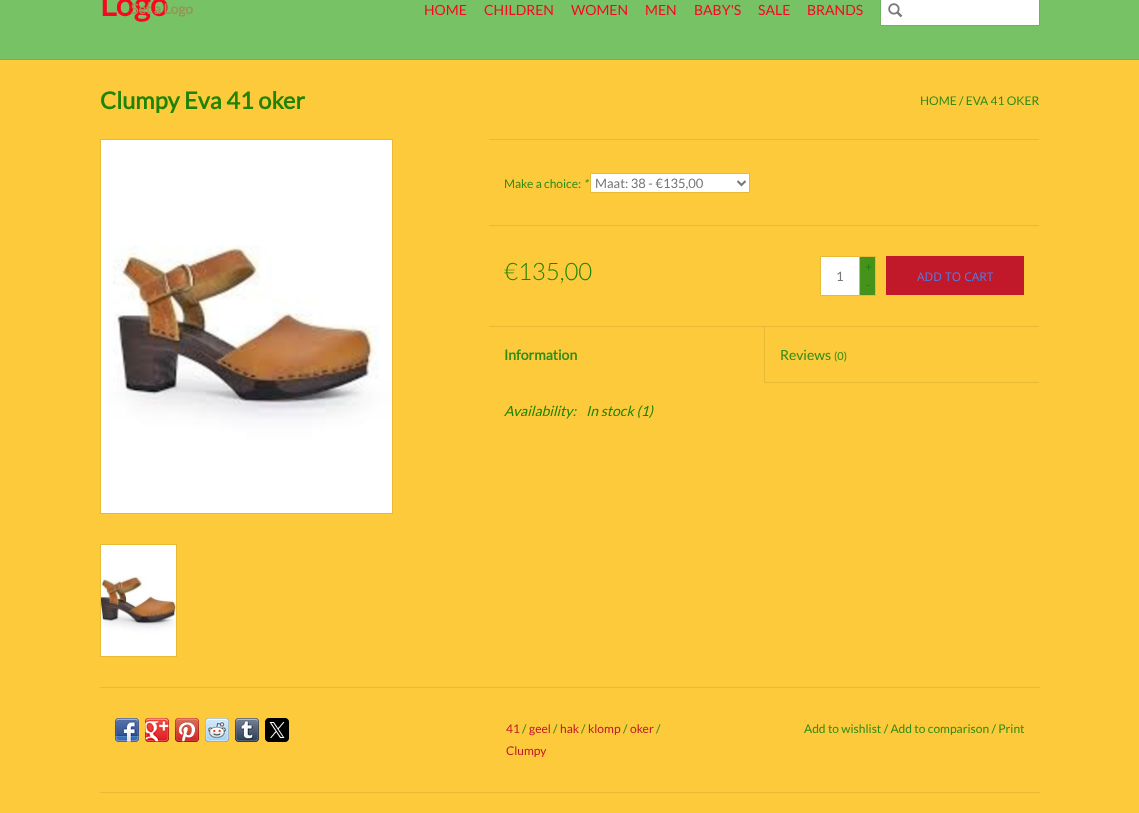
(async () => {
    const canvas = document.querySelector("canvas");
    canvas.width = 1139;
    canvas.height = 813;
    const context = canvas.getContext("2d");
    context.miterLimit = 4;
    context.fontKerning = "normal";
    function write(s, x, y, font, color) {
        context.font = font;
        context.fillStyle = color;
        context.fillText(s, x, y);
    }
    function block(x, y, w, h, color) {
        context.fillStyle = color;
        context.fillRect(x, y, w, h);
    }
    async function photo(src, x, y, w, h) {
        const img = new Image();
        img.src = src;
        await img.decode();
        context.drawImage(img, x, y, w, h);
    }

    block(0, 0, 1139, 813, "rgb(252, 202, 58)");
    block(0, 0, 1139, 59, "rgb(119, 194, 101)");
    block(0, 59, 1139, 1, "rgb(109, 178, 92)");
    write("Logo", 100, 16, "bold 32px Lato", "rgb(250, 5, 34)");
    write("Set a Logo", 131, 14, "bold 14px Lato", "rgb(150, 149, 85)");
    write("HOME", 424, 15, "14px Lato", "rgb(250, 5, 34)");
    write("CHILDREN", 484, 15, "14px Lato", "rgb(250, 5, 34)");
    write("WOMEN", 571, 15, "14px Lato", "rgb(250, 5, 34)");
    write("MEN", 645, 15, "14px Lato", "rgb(250, 5, 34)");
    write("BABY'S", 694, 15, "14px Lato", "rgb(250, 5, 34)");
    write("SALE", 758, 15, "14px Lato", "rgb(250, 5, 34)");
    write("BRANDS", 807, 15, "14px Lato", "rgb(250, 5, 34)");
    context.fillStyle = "rgb(255, 255, 255)";
    context.beginPath();
    context.rect(880.5, -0.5, 159, 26);
    context.fill();
    context.strokeStyle = "rgb(109, 178, 92)";
    context.stroke();
    await photo("media/1.png", 888, 3, 15, 15);
    write("Clumpy Eva 41 oker", 100, 109, "bold 23.6px Lato", "rgb(32, 131, 4)");
    write("HOME / EVA 41 OKER", 920, 105, "12px Lato", "rgb(49, 140, 24)");
    context.strokeStyle = "rgb(231, 185, 53)";
    context.strokeRect(100.5, 139.5, 292, 374);
    await photo("media/2.png", 101, 140, 291, 373);
    context.strokeRect(100.5, 544.5, 76, 112);
    await photo("media/3.png", 101, 545, 75, 111);
    block(489, 139, 550, 1, "rgb(231, 185, 53)");
    write("Make a choice:", 504, 188, "12px Lato", "rgb(49, 140, 24)");
    write("*", 583, 188, "italic 12px Lato", "rgb(49, 140, 24)");
    context.fillStyle = "rgb(255, 255, 255)";
    context.beginPath();
    context.rect(590.5, 173.5, 159, 19);
    context.fill();
    context.stroke();
    context.beginPath();
    context.moveTo(737.5, 181);
    context.lineTo(741.5, 185);
    context.lineTo(745.5, 181);
    context.strokeStyle = "rgb(119, 119, 119)";
    context.lineWidth = 2;
    context.stroke();
    write("Maat: 38 - €135,00", 595, 188, "13px Lato", "rgb(119, 119, 119)");
    block(489, 225, 550, 1, "rgb(231, 185, 53)");
    write("€135,00", 504, 280, "300 24px Lato", "rgb(32, 131, 4)");
    context.fillStyle = "rgb(255, 255, 255)";
    context.beginPath();
    context.rect(820.5, 256.5, 39, 39);
    context.fill();
    context.strokeStyle = "rgb(231, 185, 53)";
    context.lineWidth = 1;
    context.stroke();
    write("1", 836, 281, "13px Lato", "rgb(119, 119, 119)");
    block(860, 257, 15, 38, "rgb(70, 147, 28)");
    block(860, 256, 16, 1, "rgb(231, 185, 53)");
    block(875, 256, 1, 40, "rgb(231, 185, 53)");
    block(860, 295, 16, 1, "rgb(231, 185, 53)");
    write("+", 865, 271, "12px Lato", "rgb(32, 131, 4)");
    write("-", 866, 289, "12px Lato", "rgb(32, 131, 4)");
    block(886, 256, 138, 39, "rgb(193, 24, 42)");
    write("ADD TO CART", 917, 281, "12px Open Sans", "rgb(74, 129, 241)");
    block(489, 326, 550, 1, "rgb(231, 185, 53)");
    write("Information", 504, 360, "bold 14px Lato", "rgb(49, 140, 24)");
    block(764, 382, 275, 1, "rgb(231, 185, 53)");
    block(764, 327, 1, 56, "rgb(231, 185, 53)");
    write("Reviews", 780, 360, "14px Lato", "rgb(49, 140, 24)");
    write("(0)", 834, 360, "11px Lato", "rgb(49, 140, 24)");
    write("Availability:", 504, 416, "italic 14px Lato", "rgb(32, 131, 4)");
    write("In stock (1)", 586, 416, "italic 14px Lato", "rgb(32, 131, 4)");
    block(100, 687, 940, 1, "rgb(231, 185, 53)");
    block(100, 792, 940, 1, "rgb(231, 185, 53)");
    await photo("media/4.png", 115, 718, 24, 24);
    await photo("media/5.png", 145, 718, 24, 24);
    await photo("media/6.png", 175, 718, 24, 24);
    await photo("media/7.png", 205, 718, 24, 24);
    await photo("media/8.png", 235, 718, 24, 24);
    await photo("media/9.png", 265, 718, 24, 24);
    write("41", 506, 733, "12px Lato", "rgb(193, 24, 42)");
    write("/", 522, 733, "12px Lato", "rgb(49, 140, 24)");
    write("geel", 529, 733, "12px Lato", "rgb(193, 24, 42)");
    write("/", 553, 733, "12px Lato", "rgb(49, 140, 24)");
    write("hak", 560, 733, "12px Lato", "rgb(193, 24, 42)");
    write("/", 581, 733, "12px Lato", "rgb(49, 140, 24)");
    write("klomp", 588, 733, "12px Lato", "rgb(193, 24, 42)");
    write("/", 623, 733, "12px Lato", "rgb(49, 140, 24)");
    write("oker", 630, 733, "12px Lato", "rgb(193, 24, 42)");
    write("/", 656, 733, "12px Lato", "rgb(49, 140, 24)");
    write("Clumpy", 506, 755, "12px Lato", "rgb(193, 24, 42)");
    write("Add to wishlist / Add to comparison / Print", 804, 733, "12px Lato", "rgb(49, 140, 24)");
})();
